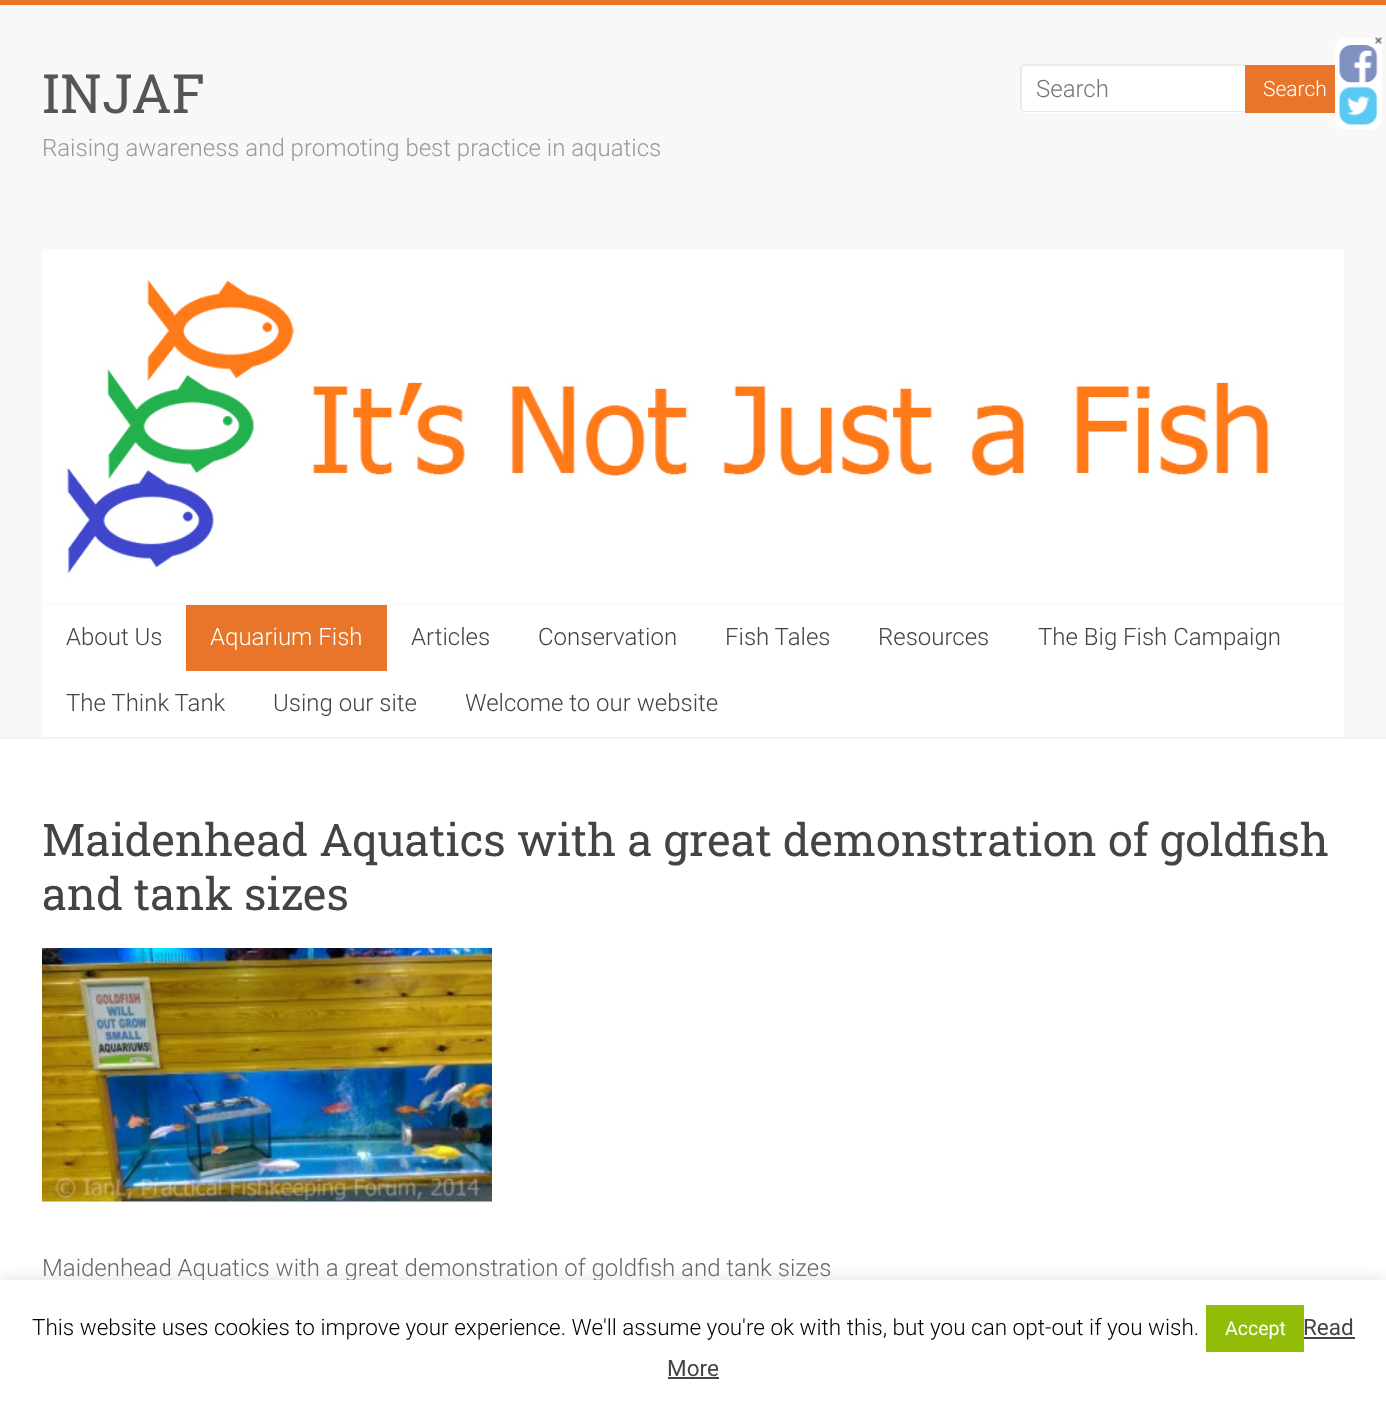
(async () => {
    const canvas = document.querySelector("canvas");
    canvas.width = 1386;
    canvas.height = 1401;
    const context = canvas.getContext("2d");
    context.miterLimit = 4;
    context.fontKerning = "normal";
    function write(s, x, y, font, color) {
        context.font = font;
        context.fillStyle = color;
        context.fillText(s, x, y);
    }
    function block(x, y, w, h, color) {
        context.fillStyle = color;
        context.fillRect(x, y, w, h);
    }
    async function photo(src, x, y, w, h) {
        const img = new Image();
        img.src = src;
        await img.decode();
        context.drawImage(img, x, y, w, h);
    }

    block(0, 0, 1386, 1401, "rgb(255, 255, 255)");
    block(0, 0, 1386, 5, "rgb(232, 117, 41)");
    block(0, 5, 1386, 732, "rgb(248, 248, 248)");
    block(0, 737, 1386, 2, "rgb(242, 242, 242)");
    write("INJAF", 42, 113, "54px Roboto Slab", "rgb(85, 85, 85)");
    write("Raising awareness and promoting best practice in aquatics", 42, 156, "300 24px Roboto", "rgb(153, 153, 153)");
    context.fillStyle = "rgb(255, 255, 255)";
    context.beginPath();
    context.roundRect(1020, 65, 225, 48, [5, 0, 0, 5]);
    context.fill();
    context.fillStyle = "rgb(234, 234, 234)";
    context.beginPath();
    context.moveTo(1024, 64);
    context.lineTo(1245, 64);
    context.lineTo(1245, 112);
    context.lineTo(1024, 112);
    context.bezierCurveTo(1022, 112, 1020, 110, 1020, 108);
    context.lineTo(1020, 69);
    context.bezierCurveTo(1020, 67, 1022, 64, 1024, 64);
    context.closePath();
    context.moveTo(1024, 66);
    context.lineTo(1245, 66);
    context.lineTo(1245, 111);
    context.lineTo(1024, 111);
    context.bezierCurveTo(1023, 111, 1022, 110, 1022, 108);
    context.lineTo(1022, 69);
    context.bezierCurveTo(1022, 67, 1023, 66, 1024, 66);
    context.closePath();
    context.fill("evenodd");
    write("Search", 1036, 97, "300 24px Roboto", "rgb(117, 117, 117)");
    block(1245, 65, 90, 48, "rgb(232, 117, 41)");
    write("Search", 1263, 96, "300 21px Roboto", "rgb(255, 255, 255)");
    await photo("media/1.png", 42, 249, 1302, 355);
    block(42, 605, 1302, 132, "rgb(255, 255, 255)");
    write("About Us", 66, 645, "300 24px Roboto", "rgb(68, 68, 68)");
    block(186, 605, 201, 66, "rgb(232, 117, 41)");
    write("Aquarium Fish", 210, 645, "300 24px Roboto", "rgb(255, 255, 255)");
    write("Articles", 411, 645, "300 24px Roboto", "rgb(68, 68, 68)");
    write("Conservation", 538, 645, "300 24px Roboto", "rgb(68, 68, 68)");
    write("Fish Tales", 725, 645, "300 24px Roboto", "rgb(68, 68, 68)");
    write("Resources", 878, 645, "300 24px Roboto", "rgb(68, 68, 68)");
    write("The Big Fish Campaign", 1038, 645, "300 24px Roboto", "rgb(68, 68, 68)");
    write("The Think Tank", 66, 711, "300 24px Roboto", "rgb(68, 68, 68)");
    write("Using our site", 273, 711, "300 24px Roboto", "rgb(68, 68, 68)");
    write("Welcome to our website", 465, 711, "300 24px Roboto", "rgb(68, 68, 68)");
    write("Maidenhead Aquatics with a great demonstration of goldfish", 42, 856, "45px Roboto Slab", "rgb(68, 68, 68)");
    write("and tank sizes", 42, 910, "45px Roboto Slab", "rgb(68, 68, 68)");
    await photo("media/2.png", 42, 948, 450, 254);
    write("Maidenhead Aquatics with a great demonstration of goldfish and tank sizes", 42, 1276, "300 24px Roboto", "rgb(102, 102, 102)");
    context.fillStyle = "rgb(255, 255, 255)";
    context.beginPath();
    context.roundRect(1335, 38, 47, 91, [9, 0, 9, 9]);
    context.fill();
    await photo("media/3.png", 1375, 37, 7, 7);
    await photo("media/4.png", 1339, 45, 39, 38);
    await photo("media/5.png", 1339, 86, 39, 39);
    context.fillStyle = "rgba(172, 171, 171, 0.3)";
    context.filter = "blur(7.5px)";
    context.beginPath();
    context.rect(0, 1278, 1386, 122);
    context.fill();
    context.filter = "none";
    block(0, 1280, 1386, 121, "rgb(255, 255, 255)");
    write("This website uses cookies to improve your experience. We'll assume you're ok with this, but you can opt-out if you wish.", 32, 1335, "300 22.5px Roboto", "rgb(0, 0, 0)");
    block(1206, 1305, 98, 47, "rgb(145, 189, 9)");
    write("Accept", 1225, 1335, "19.5px Roboto", "rgb(255, 255, 255)");
    write("Read", 1303, 1335, "22.5px Roboto", "rgb(68, 68, 68)");
    block(1304, 1337, 51, 2, "rgb(68, 68, 68)");
    write("More", 667, 1376, "22.5px Roboto", "rgb(68, 68, 68)");
    block(668, 1377, 51, 2, "rgb(68, 68, 68)");
})();
